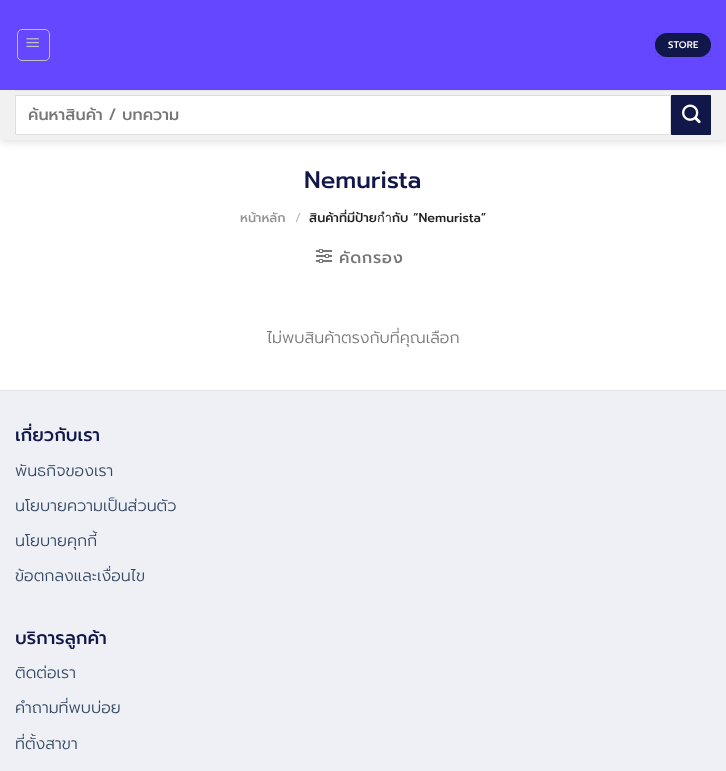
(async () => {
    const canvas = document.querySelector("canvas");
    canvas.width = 726;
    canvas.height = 771;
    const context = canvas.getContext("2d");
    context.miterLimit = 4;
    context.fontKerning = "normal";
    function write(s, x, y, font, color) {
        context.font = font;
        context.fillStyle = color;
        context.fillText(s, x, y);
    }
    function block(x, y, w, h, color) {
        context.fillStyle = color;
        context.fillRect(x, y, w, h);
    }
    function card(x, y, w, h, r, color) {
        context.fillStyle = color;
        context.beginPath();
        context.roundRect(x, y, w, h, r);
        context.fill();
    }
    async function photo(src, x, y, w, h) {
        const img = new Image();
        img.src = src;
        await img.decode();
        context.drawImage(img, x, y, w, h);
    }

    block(0, 0, 726, 771, "rgb(255, 255, 255)");
    context.fillStyle = "rgba(0, 0, 0, 0.15)";
    context.filter = "blur(5px)";
    context.beginPath();
    context.rect(1, 1, 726, 140);
    context.fill();
    context.filter = "none";
    block(0, 0, 726, 90, "rgb(100, 71, 255)");
    context.beginPath();
    context.roundRect(17.5, 29.5, 32, 31, 4.5);
    context.strokeStyle = "rgb(192, 192, 192)";
    context.stroke();
    await photo("media/1.png", 26, 38, 13, 10);
    card(655, 33, 56, 24, 12, "rgb(17, 23, 72)");
    context.strokeStyle = "rgba(0, 0, 0, 0.05)";
    context.strokeRect(655.5, 33.5, 55, 23);
    context.letterSpacing = "0.25px";
    write("STORE", 668, 48, "500 9.5px Prompt", "rgb(255, 255, 255)");
    block(0, 90, 726, 50, "rgb(241, 241, 241)");
    block(15, 90, 696, 1, "rgb(229, 229, 229)");
    context.fillStyle = "rgb(255, 255, 255)";
    context.beginPath();
    context.rect(15.5, 95.5, 655, 39);
    context.fill();
    context.strokeStyle = "rgb(221, 221, 221)";
    context.stroke();
    context.save();
    context.beginPath();
    context.rect(28, 103, 626, 24);
    context.clip();
    context.letterSpacing = "0px";
    write("ค้นหาสินค้า / บทความ", 28, 120, "500 16px Prompt", "rgb(119, 119, 119)");
    context.restore();
    context.fillStyle = "rgb(17, 23, 72)";
    context.beginPath();
    context.rect(671.5, 95.5, 39, 39);
    context.fill();
    context.strokeStyle = "rgb(16, 22, 68)";
    context.stroke();
    await photo("media/2.png", 682, 104, 19, 20);
    context.letterSpacing = "0px";
    write("Nemurista", 304, 188, "500 24px Prompt", "rgb(17, 23, 72)");
    write("หน้าหลัก", 240, 222, "500 12.75px Prompt", "rgb(148, 148, 148)");
    write("/", 295, 222, "300 12.75px Prompt", "rgb(178, 178, 178)");
    write("สินค้าที่มีป้ายกำกับ “Nemurista”", 309, 222, "500 12.75px Prompt", "rgb(34, 34, 34)");
    await photo("media/3.png", 316, 249, 16, 14);
    context.letterSpacing = "0.75px";
    write("คัดกรอง", 339, 263, "500 16px Prompt", "rgb(119, 119, 119)");
    context.letterSpacing = "0px";
    write("ไม่พบสินค้าตรงกับที่คุณเลือก", 267, 343, "300 16px Prompt", "rgb(119, 119, 119)");
    block(0, 391, 726, 380, "rgb(239, 240, 246)");
    block(0, 390, 726, 1, "rgb(227, 228, 234)");
    write("เกี่ยวกับเรา", 15, 441, "500 18px Prompt", "rgb(17, 23, 72)");
    write("พันธกิจของเรา", 15, 476, "300 16px Prompt", "rgb(51, 72, 98)");
    write("นโยบายความเป็นส่วนตัว", 15, 511, "300 16px Prompt", "rgb(51, 72, 98)");
    write("นโยบายคุกกี้", 15, 546, "300 16px Prompt", "rgb(51, 72, 98)");
    write("ข้อตกลงและเงื่อนไข", 15, 581, "300 16px Prompt", "rgb(51, 72, 98)");
    write("บริการลูกค้า", 15, 644, "500 18px Prompt", "rgb(17, 23, 72)");
    write("ติดต่อเรา", 15, 678, "300 16px Prompt", "rgb(51, 72, 98)");
    write("คําถามที่พบบ่อย", 15, 713, "300 16px Prompt", "rgb(51, 72, 98)");
    write("ที่ตั้งสาขา", 15, 749, "300 16px Prompt", "rgb(51, 72, 98)");
})();
